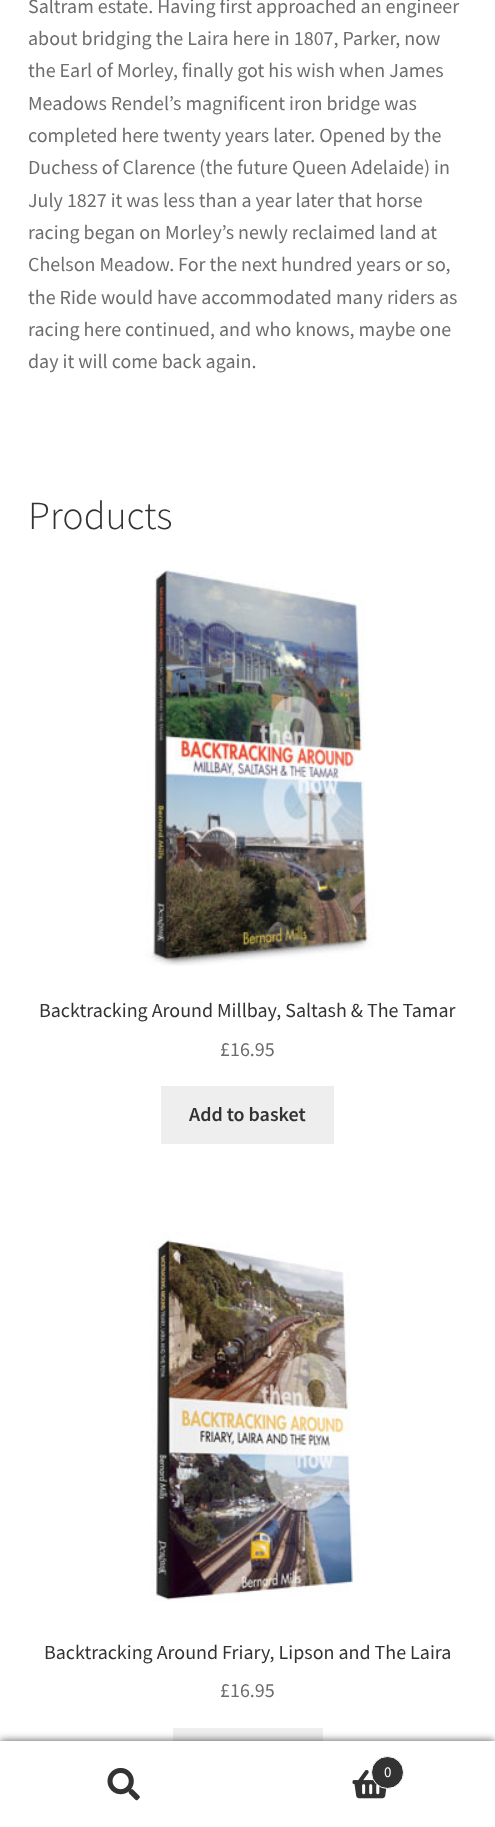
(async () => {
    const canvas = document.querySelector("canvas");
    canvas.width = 495;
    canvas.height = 1827;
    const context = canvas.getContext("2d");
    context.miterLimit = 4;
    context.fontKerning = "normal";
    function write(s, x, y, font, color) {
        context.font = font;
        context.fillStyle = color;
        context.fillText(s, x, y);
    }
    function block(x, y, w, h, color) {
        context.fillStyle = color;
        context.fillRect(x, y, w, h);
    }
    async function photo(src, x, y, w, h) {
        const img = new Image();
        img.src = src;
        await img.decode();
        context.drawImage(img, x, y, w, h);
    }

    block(0, 0, 495, 1827, "rgb(255, 255, 255)");
    write("Saltram estate. Having first approached an engineer", 28, 13, "20px Source Sans Pro", "rgb(109, 109, 109)");
    write("about bridging the Laira here in 1807, Parker, now", 28, 45, "20px Source Sans Pro", "rgb(109, 109, 109)");
    write("the Earl of Morley, finally got his wish when James", 28, 77, "20px Source Sans Pro", "rgb(109, 109, 109)");
    write("Meadows Rendel’s magnificent iron bridge was", 28, 110, "20px Source Sans Pro", "rgb(109, 109, 109)");
    write("completed here twenty years later. Opened by the", 28, 142, "20px Source Sans Pro", "rgb(109, 109, 109)");
    write("Duchess of Clarence (the future Queen Adelaide) in", 28, 174, "20px Source Sans Pro", "rgb(109, 109, 109)");
    write("July 1827 it was less than a year later that horse", 28, 207, "20px Source Sans Pro", "rgb(109, 109, 109)");
    write("racing began on Morley’s newly reclaimed land at", 28, 239, "20px Source Sans Pro", "rgb(109, 109, 109)");
    write("Chelson Meadow. For the next hundred years or so,", 28, 271, "20px Source Sans Pro", "rgb(109, 109, 109)");
    write("the Ride would have accommodated many riders as", 28, 304, "20px Source Sans Pro", "rgb(109, 109, 109)");
    write("racing here continued, and who knows, maybe one", 28, 336, "20px Source Sans Pro", "rgb(109, 109, 109)");
    write("day it will come back again.", 28, 368, "20px Source Sans Pro", "rgb(109, 109, 109)");
    write("Products", 28, 529, "300 40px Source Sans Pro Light", "rgb(51, 51, 51)");
    await photo("media/1.png", 145, 570, 230, 396);
    write("Backtracking Around Millbay, Saltash & The Tamar", 39, 1017, "20px Source Sans Pro", "rgb(51, 51, 51)");
    write("£16.95", 220, 1056, "20px Source Sans Pro", "rgb(109, 109, 109)");
    block(161, 1086, 173, 58, "rgb(238, 238, 238)");
    write("Add to basket", 189, 1121, "600 20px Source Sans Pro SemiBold", "rgb(51, 51, 51)");
    await photo("media/2.png", 150, 1232, 210, 370);
    write("Backtracking Around Friary, Lipson and The Laira", 44, 1659, "20px Source Sans Pro", "rgb(51, 51, 51)");
    write("£16.95", 220, 1697, "20px Source Sans Pro", "rgb(109, 109, 109)");
    block(173, 1728, 150, 13, "rgb(238, 238, 238)");
    context.fillStyle = "rgba(0, 0, 0, 0.7)";
    context.filter = "blur(4px)";
    context.beginPath();
    context.rect(0, 1741, 495, 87);
    context.fill();
    context.filter = "none";
    block(0, 1741, 495, 2, "rgb(255, 255, 255)");
    block(0, 1743, 495, 84, "rgb(255, 255, 255)");
    await photo("media/3.png", 107, 1767, 33, 34);
    await photo("media/4.png", 352, 1770, 35, 29);
    context.fillStyle = "rgb(51, 51, 51)";
    context.beginPath();
    context.arc(387.5, 1772.5, 16, 0, Math.PI * 2);
    context.fill();
    context.strokeStyle = "rgb(255, 255, 255)";
    context.stroke();
    write("0", 384, 1777, "15px Source Sans Pro", "rgb(255, 255, 255)");
})();
